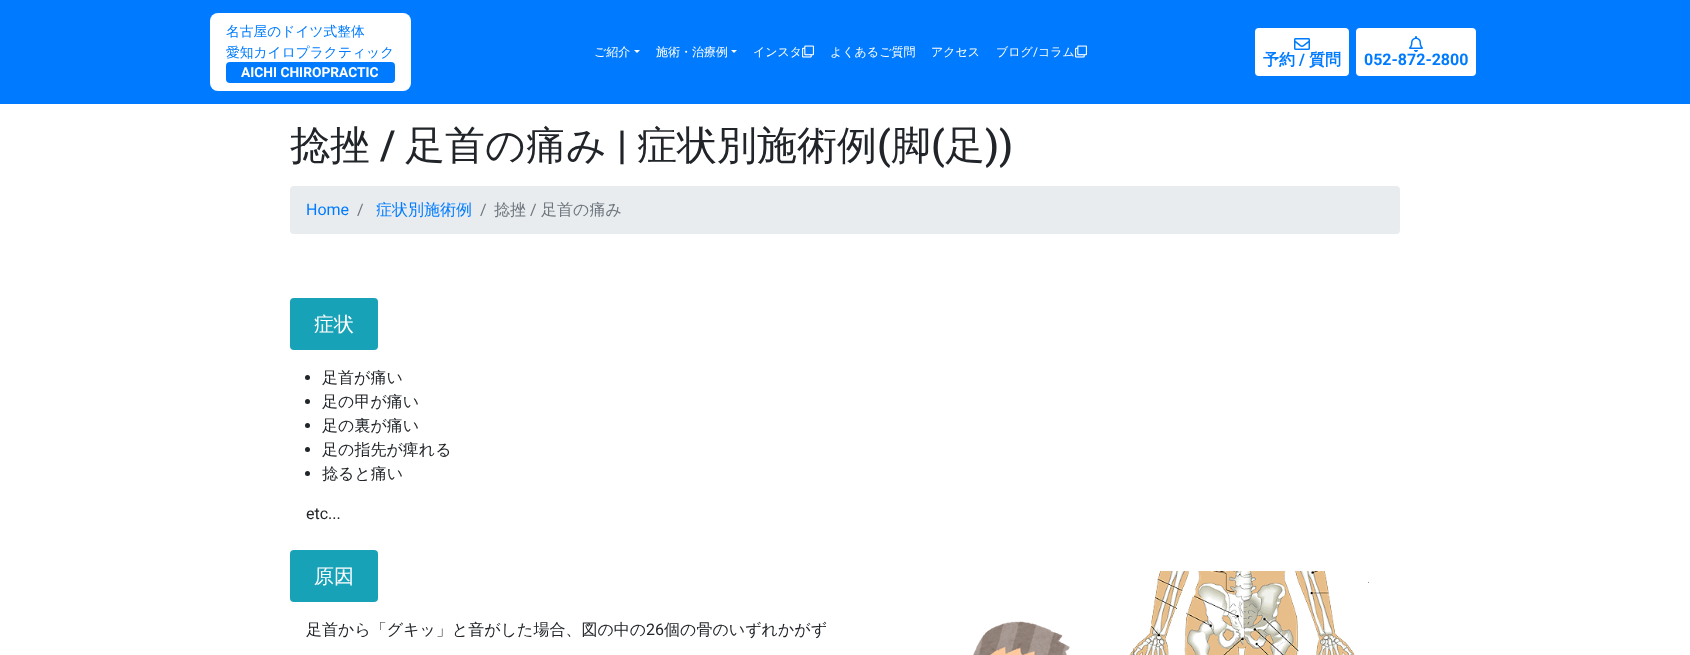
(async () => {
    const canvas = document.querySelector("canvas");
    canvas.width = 1690;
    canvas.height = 655;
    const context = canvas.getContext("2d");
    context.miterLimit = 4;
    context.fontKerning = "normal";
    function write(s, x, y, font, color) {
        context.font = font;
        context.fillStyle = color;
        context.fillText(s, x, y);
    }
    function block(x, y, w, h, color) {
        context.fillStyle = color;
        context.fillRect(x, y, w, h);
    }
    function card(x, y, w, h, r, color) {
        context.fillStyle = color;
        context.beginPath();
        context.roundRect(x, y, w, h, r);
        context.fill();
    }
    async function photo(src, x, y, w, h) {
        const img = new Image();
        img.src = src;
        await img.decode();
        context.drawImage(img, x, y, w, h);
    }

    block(0, 0, 1690, 655, "rgb(255, 255, 255)");
    block(0, 0, 1690, 104, "rgb(0, 123, 255)");
    card(210, 13, 201, 78, 8, "rgb(255, 255, 255)");
    write("名古屋のドイツ式整体", 226, 36, "500 13.75px WenQuanYi Zen Hei", "rgb(0, 123, 255)");
    write("愛知カイロプラクティック", 226, 57, "500 13.75px WenQuanYi Zen Hei", "rgb(0, 123, 255)");
    card(226, 62, 169, 21, 4, "rgb(0, 123, 255)");
    write("AICHI CHIROPRACTIC", 241, 77, "bold 13.75px Roboto", "rgb(255, 255, 255)");
    write("ご紹介", 594, 56, "500 12px WenQuanYi Zen Hei", "rgb(255, 255, 255)");
    context.beginPath();
    context.moveTo(634, 50);
    context.lineTo(640, 50);
    context.lineTo(637, 53);
    context.closePath();
    context.fill();
    write("施術・治療例", 656, 56, "500 12px WenQuanYi Zen Hei", "rgb(255, 255, 255)");
    context.beginPath();
    context.moveTo(731, 50);
    context.lineTo(737, 50);
    context.lineTo(734, 53);
    context.closePath();
    context.fill();
    write("インスタ", 753, 56, "500 12px WenQuanYi Zen Hei", "rgb(255, 255, 255)");
    await photo("media/1.png", 802, 45, 12, 13);
    write("よくあるご質問", 830, 56, "500 12px WenQuanYi Zen Hei", "rgb(255, 255, 255)");
    write("アクセス", 931, 56, "500 12px WenQuanYi Zen Hei", "rgb(255, 255, 255)");
    write("ブログ", 996, 56, "500 12px WenQuanYi Zen Hei", "rgb(255, 255, 255)");
    write("/", 1033, 56, "12px Roboto", "rgb(255, 255, 255)");
    write("コラム", 1038, 56, "500 12px WenQuanYi Zen Hei", "rgb(255, 255, 255)");
    await photo("media/1.png", 1075, 45, 12, 13);
    card(1255, 28, 94, 48, 4, "rgb(255, 255, 255)");
    await photo("media/2.png", 1294, 38, 16, 12);
    write("予約", 1263, 65, "bold 16px WenQuanYi Zen Hei", "rgb(0, 123, 255)");
    write("/", 1299, 65, "bold 16px Roboto", "rgb(0, 123, 255)");
    write("質問", 1309, 65, "bold 16px WenQuanYi Zen Hei", "rgb(0, 123, 255)");
    card(1356, 28, 120, 48, 4, "rgb(255, 255, 255)");
    await photo("media/3.png", 1409, 36, 14, 16);
    write("052-872-2800", 1364, 65, "bold 16px Roboto", "rgb(0, 123, 255)");
    write("捻挫", 290, 159, "500 40px WenQuanYi Zen Hei", "rgb(33, 37, 41)");
    write("/", 380, 159, "500 40px Roboto", "rgb(33, 37, 41)");
    write("足首の痛み", 405, 159, "500 40px WenQuanYi Zen Hei", "rgb(33, 37, 41)");
    write("|", 617, 159, "500 40px Roboto", "rgb(33, 37, 41)");
    write("症状別施術例", 637, 159, "500 40px WenQuanYi Zen Hei", "rgb(33, 37, 41)");
    write("(", 877, 159, "500 40px Roboto", "rgb(33, 37, 41)");
    write("脚", 891, 159, "500 40px WenQuanYi Zen Hei", "rgb(33, 37, 41)");
    write("(", 931, 159, "500 40px Roboto", "rgb(33, 37, 41)");
    write("足", 945, 159, "500 40px WenQuanYi Zen Hei", "rgb(33, 37, 41)");
    write("))", 985, 159, "500 40px Roboto", "rgb(33, 37, 41)");
    card(290, 186, 1110, 48, 4, "rgb(233, 236, 239)");
    write("Home", 306, 215, "16px Roboto", "rgb(0, 123, 255)");
    write("/", 357, 215, "16px Roboto", "rgb(108, 117, 125)");
    write("症状別施術例", 376, 215, "500 16px WenQuanYi Zen Hei", "rgb(0, 123, 255)");
    write("/", 480, 215, "16px Roboto", "rgb(108, 117, 125)");
    write("捻挫", 494, 215, "500 16px WenQuanYi Zen Hei", "rgb(108, 117, 125)");
    write("/", 530, 215, "16px Roboto", "rgb(108, 117, 125)");
    write("足首の痛み", 541, 215, "500 16px WenQuanYi Zen Hei", "rgb(108, 117, 125)");
    card(290, 298, 88, 52, 4, "rgb(23, 162, 184)");
    write("症状", 314, 331, "500 20px WenQuanYi Zen Hei", "rgb(255, 255, 255)");
    context.fillStyle = "rgb(33, 37, 41)";
    context.beginPath();
    context.arc(307.5, 377.5, 2.5, 0, Math.PI * 2);
    context.fill();
    write("足首が痛い", 322, 383, "500 16px WenQuanYi Zen Hei", "rgb(33, 37, 41)");
    context.beginPath();
    context.arc(307.5, 401.5, 2.5, 0, Math.PI * 2);
    context.fill();
    write("足の甲が痛い", 322, 407, "500 16px WenQuanYi Zen Hei", "rgb(33, 37, 41)");
    context.beginPath();
    context.arc(307.5, 425.5, 2.5, 0, Math.PI * 2);
    context.fill();
    write("足の裏が痛い", 322, 431, "500 16px WenQuanYi Zen Hei", "rgb(33, 37, 41)");
    context.beginPath();
    context.arc(307.5, 449.5, 2.5, 0, Math.PI * 2);
    context.fill();
    write("足の指先が痺れる", 322, 455, "500 16px WenQuanYi Zen Hei", "rgb(33, 37, 41)");
    context.beginPath();
    context.arc(307.5, 473.5, 2.5, 0, Math.PI * 2);
    context.fill();
    write("捻ると痛い", 322, 479, "500 16px WenQuanYi Zen Hei", "rgb(33, 37, 41)");
    write("etc...", 306, 519, "16px Roboto", "rgb(33, 37, 41)");
    card(290, 550, 88, 52, 4, "rgb(23, 162, 184)");
    write("原因", 314, 583, "500 20px WenQuanYi Zen Hei", "rgb(255, 255, 255)");
    write("足首から「グキッ」と音がした場合、図の中の", 306, 635, "500 16px WenQuanYi Zen Hei", "rgb(33, 37, 41)");
    write("26", 646, 635, "16px Roboto", "rgb(33, 37, 41)");
    write("個の骨のいずれかがず", 664, 635, "500 16px WenQuanYi Zen Hei", "rgb(33, 37, 41)");
    await photo("media/4.png", 973, 621, 97, 34);
    await photo("media/5.png", 1129, 571, 240, 84);
})();
